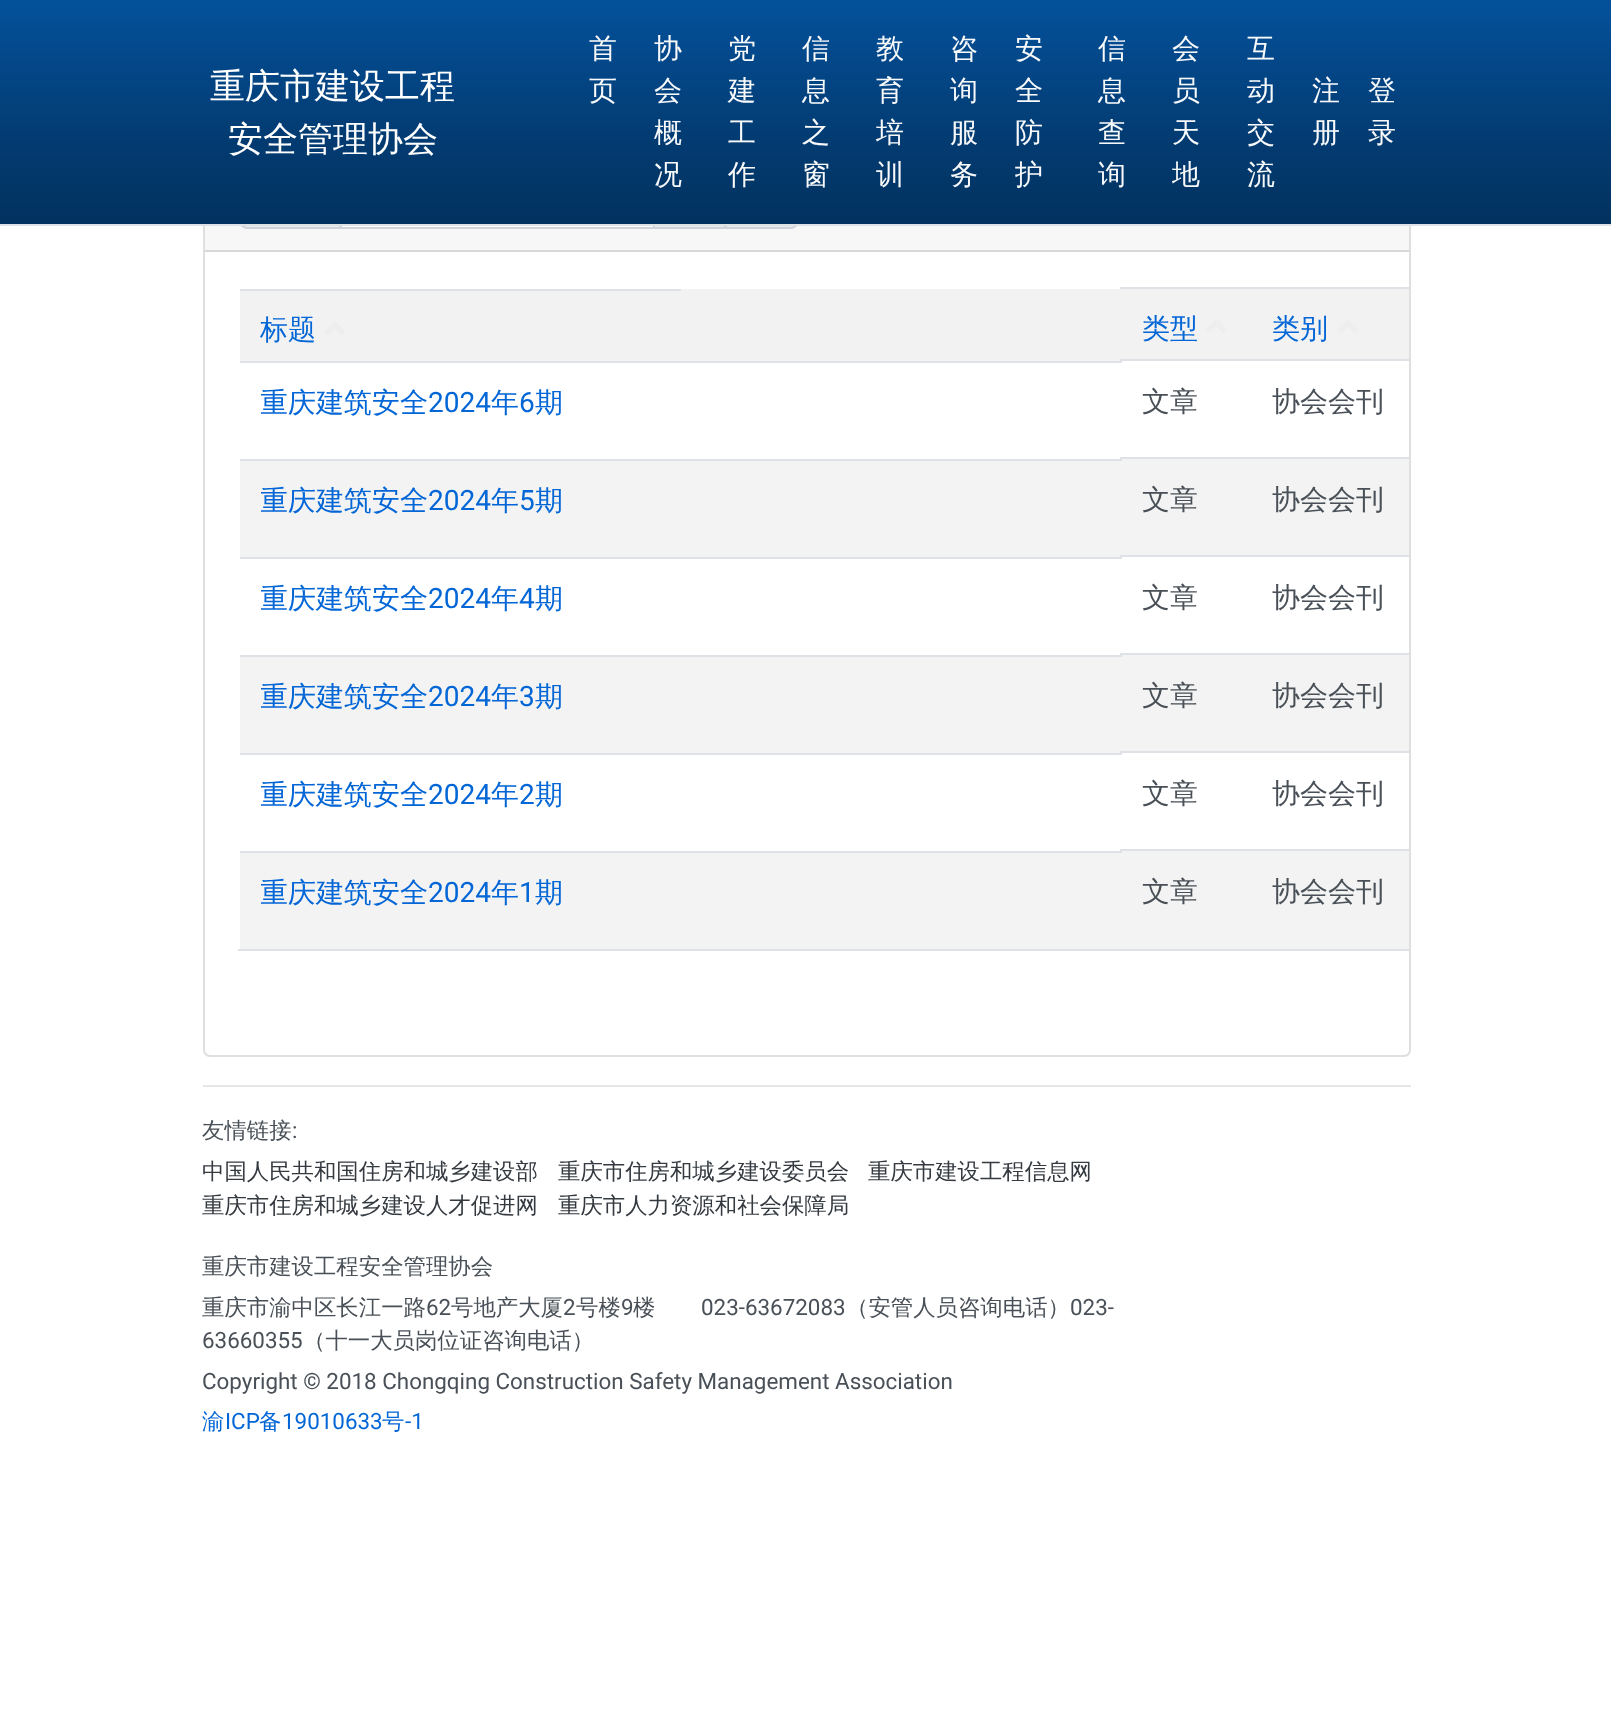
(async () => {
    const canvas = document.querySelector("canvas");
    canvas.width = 1611;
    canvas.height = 1733;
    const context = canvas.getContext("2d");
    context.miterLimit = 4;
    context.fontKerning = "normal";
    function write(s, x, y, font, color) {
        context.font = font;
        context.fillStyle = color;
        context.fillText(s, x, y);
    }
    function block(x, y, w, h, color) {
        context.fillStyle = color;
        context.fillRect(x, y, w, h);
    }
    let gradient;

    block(0, 0, 1611, 1733, "rgb(255, 255, 255)");
    context.beginPath();
    context.roundRect(204, 141, 1206, 915, 6);
    context.strokeStyle = "rgb(223, 223, 223)";
    context.lineWidth = 2;
    context.stroke();
    block(205, 226, 1204, 24, "rgba(0, 0, 0, 0.03)");
    context.fillStyle = "rgb(233, 236, 239)";
    context.beginPath();
    context.roundRect(241, 164, 99, 64, [6, 0, 0, 6]);
    context.fill();
    context.strokeStyle = "rgb(206, 212, 218)";
    context.stroke();
    block(342, 226, 311, 1, "rgb(255, 255, 255)");
    context.strokeRect(341, 164, 313, 64);
    block(655, 226, 69, 1, "rgb(233, 236, 239)");
    context.strokeRect(654, 164, 71, 64);
    context.beginPath();
    context.roundRect(726, 164, 71, 64, [0, 6, 6, 0]);
    context.fill();
    context.stroke();
    gradient = context.createLinearGradient(806, 0, 806, 224);
    gradient.addColorStop(0, "rgb(4, 81, 155)");
    gradient.addColorStop(0.6, "rgb(3, 60, 115)");
    gradient.addColorStop(1, "rgb(2, 50, 95)");
    context.fillStyle = gradient;
    context.fillRect(0, 0, 1611, 224);
    block(0, 224, 1611, 2, "rgb(222, 226, 230)");
    write("重庆市建设工程", 210, 98, "500 35px WenQuanYi Zen Hei", "rgb(255, 255, 255)");
    write("安全管理协会", 228, 151, "500 35px WenQuanYi Zen Hei", "rgb(255, 255, 255)");
    write("首", 589, 58, "500 28px WenQuanYi Zen Hei", "rgb(248, 249, 250)");
    write("页", 589, 100, "500 28px WenQuanYi Zen Hei", "rgb(248, 249, 250)");
    write("协", 654, 58, "500 28px WenQuanYi Zen Hei", "rgb(248, 249, 250)");
    write("会", 654, 100, "500 28px WenQuanYi Zen Hei", "rgb(248, 249, 250)");
    write("概", 654, 142, "500 28px WenQuanYi Zen Hei", "rgb(248, 249, 250)");
    write("况", 654, 184, "500 28px WenQuanYi Zen Hei", "rgb(248, 249, 250)");
    write("党", 728, 58, "500 28px WenQuanYi Zen Hei", "rgb(248, 249, 250)");
    write("建", 728, 100, "500 28px WenQuanYi Zen Hei", "rgb(248, 249, 250)");
    write("工", 728, 142, "500 28px WenQuanYi Zen Hei", "rgb(248, 249, 250)");
    write("作", 728, 184, "500 28px WenQuanYi Zen Hei", "rgb(248, 249, 250)");
    write("信", 802, 58, "500 28px WenQuanYi Zen Hei", "rgb(248, 249, 250)");
    write("息", 802, 100, "500 28px WenQuanYi Zen Hei", "rgb(248, 249, 250)");
    write("之", 802, 142, "500 28px WenQuanYi Zen Hei", "rgb(248, 249, 250)");
    write("窗", 802, 184, "500 28px WenQuanYi Zen Hei", "rgb(248, 249, 250)");
    write("教", 876, 58, "500 28px WenQuanYi Zen Hei", "rgb(248, 249, 250)");
    write("育", 876, 100, "500 28px WenQuanYi Zen Hei", "rgb(248, 249, 250)");
    write("培", 876, 142, "500 28px WenQuanYi Zen Hei", "rgb(248, 249, 250)");
    write("训", 876, 184, "500 28px WenQuanYi Zen Hei", "rgb(248, 249, 250)");
    write("咨", 950, 58, "500 28px WenQuanYi Zen Hei", "rgb(248, 249, 250)");
    write("询", 950, 100, "500 28px WenQuanYi Zen Hei", "rgb(248, 249, 250)");
    write("服", 950, 142, "500 28px WenQuanYi Zen Hei", "rgb(248, 249, 250)");
    write("务", 950, 184, "500 28px WenQuanYi Zen Hei", "rgb(248, 249, 250)");
    write("安", 1015, 58, "500 28px WenQuanYi Zen Hei", "rgb(248, 249, 250)");
    write("全", 1015, 100, "500 28px WenQuanYi Zen Hei", "rgb(248, 249, 250)");
    write("防", 1015, 142, "500 28px WenQuanYi Zen Hei", "rgb(248, 249, 250)");
    write("护", 1015, 184, "500 28px WenQuanYi Zen Hei", "rgb(248, 249, 250)");
    write("信", 1098, 58, "500 28px WenQuanYi Zen Hei", "rgb(248, 249, 250)");
    write("息", 1098, 100, "500 28px WenQuanYi Zen Hei", "rgb(248, 249, 250)");
    write("查", 1098, 142, "500 28px WenQuanYi Zen Hei", "rgb(248, 249, 250)");
    write("询", 1098, 184, "500 28px WenQuanYi Zen Hei", "rgb(248, 249, 250)");
    write("会", 1172, 58, "500 28px WenQuanYi Zen Hei", "rgb(248, 249, 250)");
    write("员", 1172, 100, "500 28px WenQuanYi Zen Hei", "rgb(248, 249, 250)");
    write("天", 1172, 142, "500 28px WenQuanYi Zen Hei", "rgb(248, 249, 250)");
    write("地", 1172, 184, "500 28px WenQuanYi Zen Hei", "rgb(248, 249, 250)");
    write("互", 1247, 58, "500 28px WenQuanYi Zen Hei", "rgb(248, 249, 250)");
    write("动", 1247, 100, "500 28px WenQuanYi Zen Hei", "rgb(248, 249, 250)");
    write("交", 1247, 142, "500 28px WenQuanYi Zen Hei", "rgb(248, 249, 250)");
    write("流", 1247, 184, "500 28px WenQuanYi Zen Hei", "rgb(248, 249, 250)");
    write("注", 1312, 100, "500 28px WenQuanYi Zen Hei", "rgb(248, 249, 250)");
    write("册", 1312, 142, "500 28px WenQuanYi Zen Hei", "rgb(248, 249, 250)");
    write("登", 1368, 100, "500 28px WenQuanYi Zen Hei", "rgb(248, 249, 250)");
    write("录", 1368, 142, "500 28px WenQuanYi Zen Hei", "rgb(248, 249, 250)");
    block(205, 250, 1204, 2, "rgb(216, 216, 216)");
    block(240, 289, 1169, 72, "rgb(242, 242, 242)");
    block(1120, 287, 289, 2, "rgb(222, 226, 230)");
    block(240, 289, 441, 2, "rgb(222, 226, 230)");
    write("标题", 260, 339, "500 28px WenQuanYi Zen Hei", "rgb(3, 102, 214)");
    context.fillStyle = "rgb(238, 238, 238)";
    context.beginPath();
    context.moveTo(345.5, 331.5);
    context.lineTo(341.5, 335.5);
    context.lineTo(334.5, 328.5);
    context.lineTo(327.5, 335.5);
    context.lineTo(323.5, 331.5);
    context.lineTo(334.5, 320.5);
    context.closePath();
    context.fill();
    write("类型", 1142, 338, "500 28px WenQuanYi Zen Hei", "rgb(3, 102, 214)");
    context.fillStyle = "rgb(238, 238, 238)";
    context.beginPath();
    context.moveTo(1227.5, 329.5);
    context.lineTo(1223.5, 333.5);
    context.lineTo(1216.5, 326.5);
    context.lineTo(1209.5, 333.5);
    context.lineTo(1205.5, 329.5);
    context.lineTo(1216.5, 318.5);
    context.closePath();
    context.fill();
    write("类别", 1272, 338, "500 28px WenQuanYi Zen Hei", "rgb(3, 102, 214)");
    context.fillStyle = "rgb(238, 238, 238)";
    context.beginPath();
    context.moveTo(1359, 329.5);
    context.lineTo(1355, 333.5);
    context.lineTo(1348, 326.5);
    context.lineTo(1341, 333.5);
    context.lineTo(1337, 329.5);
    context.lineTo(1348, 318.5);
    context.closePath();
    context.fill();
    block(1120, 359, 289, 2, "rgb(222, 226, 230)");
    block(240, 361, 882, 2, "rgb(222, 226, 230)");
    context.save();
    context.beginPath();
    context.rect(261, 383, 840, 42);
    context.clip();
    write("重庆建筑安全", 260, 412, "500 28px WenQuanYi Zen Hei", "rgb(3, 102, 214)");
    context.restore();
    write("2024", 428, 412, "28px Roboto", "rgb(3, 102, 214)");
    write("年", 491, 412, "500 28px WenQuanYi Zen Hei", "rgb(3, 102, 214)");
    write("6", 519, 412, "28px Roboto", "rgb(3, 102, 214)");
    write("期", 535, 412, "500 28px WenQuanYi Zen Hei", "rgb(3, 102, 214)");
    write("文章", 1142, 411, "500 28px WenQuanYi Zen Hei", "rgb(73, 80, 87)");
    write("协会会刊", 1272, 411, "500 28px WenQuanYi Zen Hei", "rgb(73, 80, 87)");
    block(240, 459, 1169, 98, "rgb(243, 243, 243)");
    block(1120, 457, 289, 2, "rgb(222, 226, 230)");
    block(240, 459, 882, 2, "rgb(222, 226, 230)");
    context.save();
    context.beginPath();
    context.rect(261, 481, 840, 42);
    context.clip();
    write("重庆建筑安全", 260, 510, "500 28px WenQuanYi Zen Hei", "rgb(3, 102, 214)");
    context.restore();
    write("2024", 428, 510, "28px Roboto", "rgb(3, 102, 214)");
    write("年", 491, 510, "500 28px WenQuanYi Zen Hei", "rgb(3, 102, 214)");
    write("5", 519, 510, "28px Roboto", "rgb(3, 102, 214)");
    write("期", 535, 510, "500 28px WenQuanYi Zen Hei", "rgb(3, 102, 214)");
    write("文章", 1142, 509, "500 28px WenQuanYi Zen Hei", "rgb(73, 80, 87)");
    write("协会会刊", 1272, 509, "500 28px WenQuanYi Zen Hei", "rgb(73, 80, 87)");
    block(1120, 555, 289, 2, "rgb(222, 226, 230)");
    block(240, 557, 882, 2, "rgb(222, 226, 230)");
    context.save();
    context.beginPath();
    context.rect(261, 579, 840, 42);
    context.clip();
    write("重庆建筑安全", 260, 608, "500 28px WenQuanYi Zen Hei", "rgb(3, 102, 214)");
    context.restore();
    write("2024", 428, 608, "28px Roboto", "rgb(3, 102, 214)");
    write("年", 491, 608, "500 28px WenQuanYi Zen Hei", "rgb(3, 102, 214)");
    write("4", 519, 608, "28px Roboto", "rgb(3, 102, 214)");
    write("期", 535, 608, "500 28px WenQuanYi Zen Hei", "rgb(3, 102, 214)");
    write("文章", 1142, 607, "500 28px WenQuanYi Zen Hei", "rgb(73, 80, 87)");
    write("协会会刊", 1272, 607, "500 28px WenQuanYi Zen Hei", "rgb(73, 80, 87)");
    block(240, 655, 1169, 98, "rgb(243, 243, 243)");
    block(1120, 653, 289, 2, "rgb(222, 226, 230)");
    block(240, 655, 882, 2, "rgb(222, 226, 230)");
    context.save();
    context.beginPath();
    context.rect(261, 677, 840, 42);
    context.clip();
    write("重庆建筑安全", 260, 706, "500 28px WenQuanYi Zen Hei", "rgb(3, 102, 214)");
    context.restore();
    write("2024", 428, 706, "28px Roboto", "rgb(3, 102, 214)");
    write("年", 491, 706, "500 28px WenQuanYi Zen Hei", "rgb(3, 102, 214)");
    write("3", 519, 706, "28px Roboto", "rgb(3, 102, 214)");
    write("期", 535, 706, "500 28px WenQuanYi Zen Hei", "rgb(3, 102, 214)");
    write("文章", 1142, 705, "500 28px WenQuanYi Zen Hei", "rgb(73, 80, 87)");
    write("协会会刊", 1272, 705, "500 28px WenQuanYi Zen Hei", "rgb(73, 80, 87)");
    block(1120, 751, 289, 2, "rgb(222, 226, 230)");
    block(240, 753, 882, 2, "rgb(222, 226, 230)");
    context.save();
    context.beginPath();
    context.rect(261, 775, 840, 42);
    context.clip();
    write("重庆建筑安全", 260, 804, "500 28px WenQuanYi Zen Hei", "rgb(3, 102, 214)");
    context.restore();
    write("2024", 428, 804, "28px Roboto", "rgb(3, 102, 214)");
    write("年", 491, 804, "500 28px WenQuanYi Zen Hei", "rgb(3, 102, 214)");
    write("2", 519, 804, "28px Roboto", "rgb(3, 102, 214)");
    write("期", 535, 804, "500 28px WenQuanYi Zen Hei", "rgb(3, 102, 214)");
    write("文章", 1142, 803, "500 28px WenQuanYi Zen Hei", "rgb(73, 80, 87)");
    write("协会会刊", 1272, 803, "500 28px WenQuanYi Zen Hei", "rgb(73, 80, 87)");
    block(240, 851, 1169, 98, "rgb(243, 243, 243)");
    block(1120, 849, 289, 2, "rgb(222, 226, 230)");
    block(240, 851, 882, 2, "rgb(222, 226, 230)");
    context.save();
    context.beginPath();
    context.rect(261, 873, 840, 42);
    context.clip();
    write("重庆建筑安全", 260, 902, "500 28px WenQuanYi Zen Hei", "rgb(3, 102, 214)");
    context.restore();
    write("2024", 428, 902, "28px Roboto", "rgb(3, 102, 214)");
    write("年", 491, 902, "500 28px WenQuanYi Zen Hei", "rgb(3, 102, 214)");
    write("1", 519, 902, "28px Roboto", "rgb(3, 102, 214)");
    write("期", 535, 902, "500 28px WenQuanYi Zen Hei", "rgb(3, 102, 214)");
    write("文章", 1142, 901, "500 28px WenQuanYi Zen Hei", "rgb(73, 80, 87)");
    write("协会会刊", 1272, 901, "500 28px WenQuanYi Zen Hei", "rgb(73, 80, 87)");
    block(238, 949, 1171, 2, "rgb(222, 226, 230)");
    block(203, 1085, 1208, 2, "rgb(230, 230, 230)");
    write("友情链接", 202, 1138, "500 22.4px WenQuanYi Zen Hei", "rgb(73, 80, 87)");
    write(":", 292, 1138, "22.4px Roboto", "rgb(73, 80, 87)");
    write("中国人民共和国住房和城乡建设部", 202, 1179, "500 22.4px WenQuanYi Zen Hei", "rgb(52, 58, 64)");
    write("重庆市住房和城乡建设委员会", 558, 1179, "500 22.4px WenQuanYi Zen Hei", "rgb(52, 58, 64)");
    write("重庆市建设工程信息网", 868, 1179, "500 22.4px WenQuanYi Zen Hei", "rgb(52, 58, 64)");
    write("重庆市住房和城乡建设人才促进网", 202, 1213, "500 22.4px WenQuanYi Zen Hei", "rgb(52, 58, 64)");
    write("重庆市人力资源和社会保障局", 558, 1213, "500 22.4px WenQuanYi Zen Hei", "rgb(52, 58, 64)");
    write("重庆市建设工程安全管理协会", 202, 1274, "500 22.4px WenQuanYi Zen Hei", "rgb(73, 80, 87)");
    write("重庆市渝中区长江一路", 202, 1315, "500 22.4px WenQuanYi Zen Hei", "rgb(73, 80, 87)");
    write("62", 426, 1315, "22.4px Roboto", "rgb(73, 80, 87)");
    write("号地产大厦", 451, 1315, "500 22.4px WenQuanYi Zen Hei", "rgb(73, 80, 87)");
    write("2", 563, 1315, "22.4px Roboto", "rgb(73, 80, 87)");
    write("号楼", 576, 1315, "500 22.4px WenQuanYi Zen Hei", "rgb(73, 80, 87)");
    write("9", 621, 1315, "22.4px Roboto", "rgb(73, 80, 87)");
    write("楼", 633, 1315, "500 22.4px WenQuanYi Zen Hei", "rgb(73, 80, 87)");
    write("023-63672083", 701, 1315, "22.4px Roboto", "rgb(73, 80, 87)");
    write("（安管人员咨询电话）", 846, 1315, "500 22.4px WenQuanYi Zen Hei", "rgb(73, 80, 87)");
    write("023-", 1070, 1315, "22.4px Roboto", "rgb(73, 80, 87)");
    write("63660355", 202, 1348, "22.4px Roboto", "rgb(73, 80, 87)");
    write("（十一大员岗位证咨询电话）", 303, 1348, "500 22.4px WenQuanYi Zen Hei", "rgb(73, 80, 87)");
    write("Copyright © 2018 Chongqing Construction Safety Management Association", 202, 1389, "22.4px Roboto", "rgb(73, 80, 87)");
    write("渝", 202, 1429, "500 22.4px WenQuanYi Zen Hei", "rgb(3, 102, 214)");
    write("ICP", 225, 1429, "22.4px Roboto", "rgb(3, 102, 214)");
    write("备", 259, 1429, "500 22.4px WenQuanYi Zen Hei", "rgb(3, 102, 214)");
    write("19010633", 282, 1429, "22.4px Roboto", "rgb(3, 102, 214)");
    write("号", 382, 1429, "500 22.4px WenQuanYi Zen Hei", "rgb(3, 102, 214)");
    write("-1", 405, 1429, "22.4px Roboto", "rgb(3, 102, 214)");
})();
